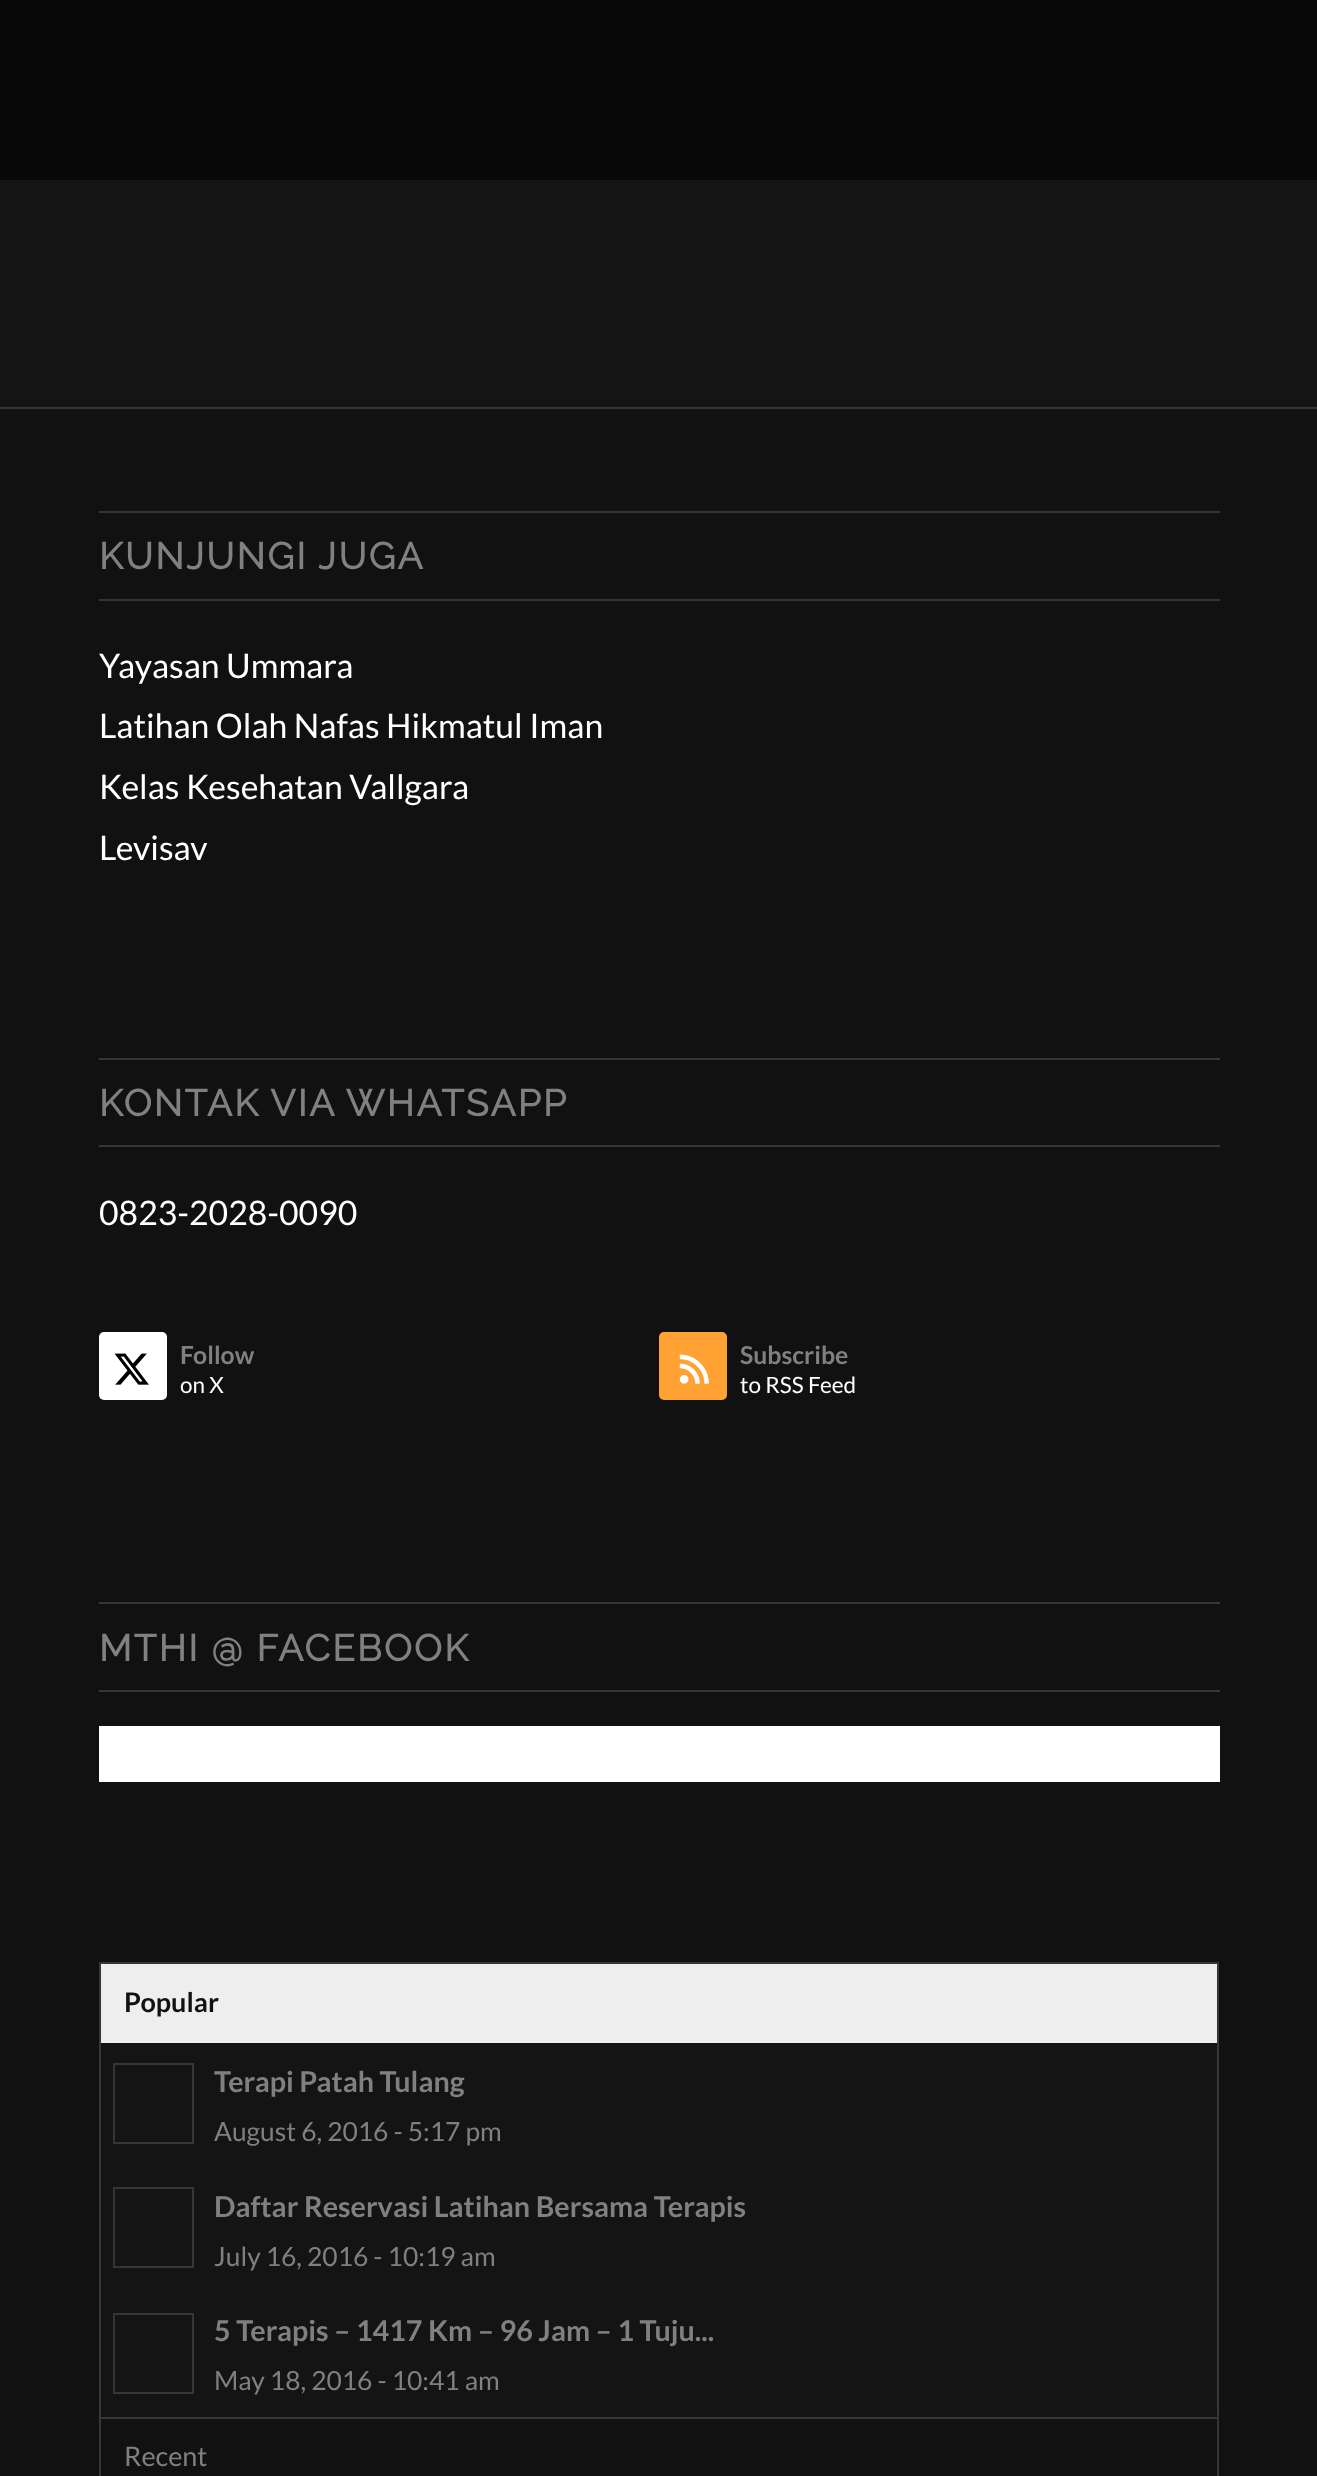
(async () => {
    const canvas = document.querySelector("canvas");
    canvas.width = 1317;
    canvas.height = 2476;
    const context = canvas.getContext("2d");
    context.miterLimit = 4;
    context.fontKerning = "normal";
    function write(s, x, y, font, color) {
        context.font = font;
        context.fillStyle = color;
        context.fillText(s, x, y);
    }
    function block(x, y, w, h, color) {
        context.fillStyle = color;
        context.fillRect(x, y, w, h);
    }
    function card(x, y, w, h, r, color) {
        context.fillStyle = color;
        context.beginPath();
        context.roundRect(x, y, w, h, r);
        context.fill();
    }
    async function photo(src, x, y, w, h) {
        const img = new Image();
        img.src = src;
        await img.decode();
        context.drawImage(img, x, y, w, h);
    }

    block(0, 0, 1317, 2476, "rgb(20, 20, 20)");
    block(0, 0, 1317, 180, "rgb(8, 8, 8)");
    block(0, 409, 1317, 2067, "rgb(17, 17, 17)");
    block(0, 407, 1317, 2, "rgb(54, 54, 54)");
    block(99, 511, 1121, 2, "rgb(54, 54, 54)");
    block(99, 599, 1121, 2, "rgb(54, 54, 54)");
    context.letterSpacing = "2.25px";
    write("KUNJUNGI JUGA", 99, 569, "bold 37.1px Raleway", "rgb(128, 128, 128)");
    context.letterSpacing = "0px";
    write("Yayasan Ummara", 99, 678, "33.75px Lato", "rgb(255, 255, 255)");
    write("Latihan Olah Nafas Hikmatul Iman", 99, 738, "33.75px Lato", "rgb(255, 255, 255)");
    write("Kelas Kesehatan Vallgara", 99, 799, "33.75px Lato", "rgb(255, 255, 255)");
    write("Levisav", 99, 860, "33.75px Lato", "rgb(255, 255, 255)");
    block(99, 1058, 1121, 2, "rgb(54, 54, 54)");
    block(99, 1145, 1121, 2, "rgb(54, 54, 54)");
    context.letterSpacing = "2.25px";
    write("KONTAK VIA WHATSAPP", 99, 1116, "bold 37.1px Raleway", "rgb(128, 128, 128)");
    context.letterSpacing = "0px";
    write("0823-2028-0090", 99, 1225, "33.75px Lato", "rgb(255, 255, 255)");
    card(99, 1332, 68, 68, 5, "rgb(255, 255, 255)");
    await photo("media/1.png", 114, 1353, 35, 32);
    write("Follow", 180, 1364, "bold 24.75px Lato", "rgb(128, 128, 128)");
    write("on X", 180, 1393, "22.5px Lato", "rgb(255, 255, 255)");
    card(659, 1332, 68, 68, 5, "rgb(255, 161, 51)");
    await photo("media/2.png", 679, 1354, 30, 30);
    write("Subscribe", 740, 1364, "bold 24.75px Lato", "rgb(128, 128, 128)");
    write("to RSS Feed", 740, 1393, "22.5px Lato", "rgb(255, 255, 255)");
    block(99, 1602, 1121, 2, "rgb(54, 54, 54)");
    block(99, 1690, 1121, 2, "rgb(54, 54, 54)");
    context.letterSpacing = "2.25px";
    write("MTHI @ FACEBOOK", 99, 1661, "bold 37.1px Raleway", "rgb(128, 128, 128)");
    block(99, 1726, 1121, 56, "rgb(255, 255, 255)");
    block(1217, 1962, 2, 514, "rgb(54, 54, 54)");
    block(99, 1962, 2, 514, "rgb(54, 54, 54)");
    block(101, 1964, 1116, 79, "rgb(238, 238, 238)");
    block(101, 1962, 1116, 2, "rgb(54, 54, 54)");
    context.letterSpacing = "0px";
    write("Popular", 124, 2012, "bold 27px Lato", "rgb(17, 17, 17)");
    card(101, 2043, 1116, 374, 5, "rgb(20, 20, 20)");
    context.strokeStyle = "rgb(54, 54, 54)";
    context.lineWidth = 2;
    context.strokeRect(114, 2064, 79, 79);
    write("Terapi Patah Tulang", 214, 2092, "bold 28.7px Lato", "rgb(128, 128, 128)");
    write("August 6, 2016 - 5:17 pm", 214, 2141, "26.4px Lato", "rgb(128, 128, 128)");
    context.strokeRect(114, 2188, 79, 79);
    write("Daftar Reservasi Latihan Bersama Terapis", 214, 2217, "bold 28.7px Lato", "rgb(128, 128, 128)");
    write("July 16, 2016 - 10:19 am", 214, 2266, "26.4px Lato", "rgb(128, 128, 128)");
    context.strokeRect(114, 2314, 79, 79);
    write("5 Terapis – 1417 Km – 96 Jam – 1 Tuju...", 214, 2341, "bold 28.7px Lato", "rgb(128, 128, 128)");
    write("May 18, 2016 - 10:41 am", 214, 2390, "26.4px Lato", "rgb(128, 128, 128)");
    block(101, 2417, 1116, 2, "rgb(54, 54, 54)");
    write("Recent", 124, 2466, "27px Lato", "rgb(128, 128, 128)");
})();
